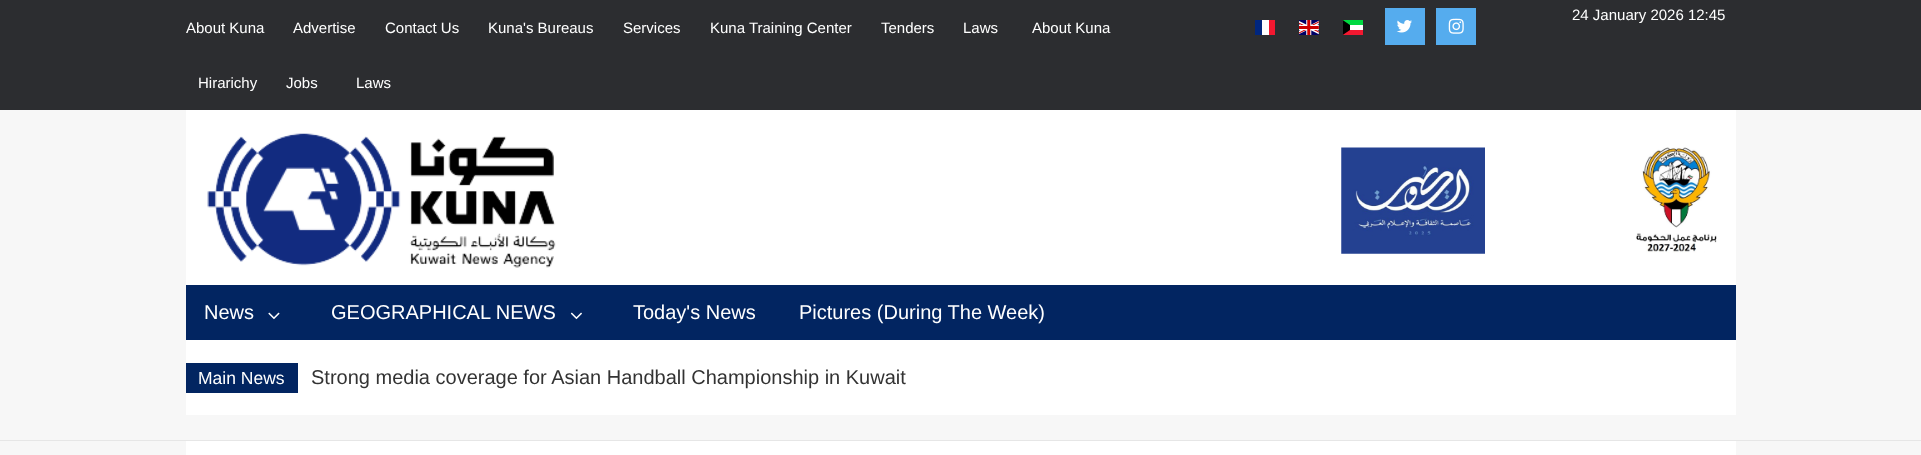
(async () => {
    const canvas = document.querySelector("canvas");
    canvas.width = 1921;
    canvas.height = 455;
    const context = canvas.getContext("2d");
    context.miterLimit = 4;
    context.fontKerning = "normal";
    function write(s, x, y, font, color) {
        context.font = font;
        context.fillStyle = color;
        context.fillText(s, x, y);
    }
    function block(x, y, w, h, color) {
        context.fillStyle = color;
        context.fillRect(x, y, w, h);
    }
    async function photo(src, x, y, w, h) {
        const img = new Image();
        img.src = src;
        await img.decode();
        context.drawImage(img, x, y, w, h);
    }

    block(0, 0, 1921, 455, "rgb(247, 247, 247)");
    block(0, 0, 1921, 110, "rgb(44, 45, 48)");
    block(1262, 20, 7, 15, "rgb(255, 255, 255)");
    block(1255, 20, 7, 15, "rgb(0, 38, 127)");
    block(1269, 20, 6, 15, "rgb(243, 24, 48)");
    await photo("media/1.png", 1299, 20, 20, 15);
    block(1343, 25, 20, 5, "rgb(255, 255, 255)");
    block(1343, 30, 20, 5, "rgb(243, 24, 48)");
    block(1343, 20, 20, 5, "rgb(0, 217, 65)");
    context.save();
    context.beginPath();
    context.rect(1343, 20, 20, 15);
    context.clip();
    context.fillStyle = "rgb(0, 0, 0)";
    context.beginPath();
    context.moveTo(1342.5, 20);
    context.lineTo(1342.5, 35);
    context.lineTo(1350, 30);
    context.lineTo(1350, 25);
    context.closePath();
    context.fill("evenodd");
    context.restore();
    block(1385, 8, 40, 37, "rgb(85, 172, 238)");
    await photo("media/2.png", 1396, 20, 16, 13);
    block(1436, 8, 40, 37, "rgb(85, 172, 238)");
    await photo("media/3.png", 1448, 18, 16, 16);
    write("24 January 2026 12:45", 1572, 20, "15px Liberation Sans", "rgb(255, 255, 255)");
    write("About Kuna", 186, 33, "15px Liberation Sans", "rgb(255, 255, 255)");
    write("Advertise", 293, 33, "15px Liberation Sans", "rgb(255, 255, 255)");
    write("Contact Us", 385, 33, "15px Liberation Sans", "rgb(255, 255, 255)");
    write("Kuna's Bureaus", 488, 33, "15px Liberation Sans", "rgb(255, 255, 255)");
    write("Services", 623, 33, "15px Liberation Sans", "rgb(255, 255, 255)");
    write("Kuna Training Center", 710, 33, "15px Liberation Sans", "rgb(255, 255, 255)");
    write("Tenders", 881, 33, "15px Liberation Sans", "rgb(255, 255, 255)");
    write("Laws", 963, 33, "15px Liberation Sans", "rgb(255, 255, 255)");
    write("About Kuna", 1032, 33, "15px Liberation Sans", "rgb(255, 255, 255)");
    write("Hirarichy", 198, 88, "15px Liberation Sans", "rgb(255, 255, 255)");
    write("Jobs", 286, 88, "15px Liberation Sans", "rgb(255, 255, 255)");
    write("Laws", 356, 88, "15px Liberation Sans", "rgb(255, 255, 255)");
    block(186, 110, 1550, 175, "rgb(255, 255, 255)");
    await photo("media/4.png", 207, 133, 349, 135);
    await photo("media/5.png", 1341, 147, 144, 107);
    await photo("media/6.png", 1636, 147, 81, 106);
    block(186, 285, 1550, 55, "rgb(2, 37, 97)");
    write("News", 204, 319, "20px Liberation Sans", "rgb(255, 255, 255)");
    await photo("media/7.png", 268, 312, 12, 8);
    write("GEOGRAPHICAL NEWS", 331, 319, "20px Liberation Sans", "rgb(255, 255, 255)");
    await photo("media/8.png", 570, 312, 12, 8);
    write("Today's News", 633, 319, "20px Liberation Sans", "rgb(255, 255, 255)");
    write("Pictures (During The Week)", 799, 319, "20px Liberation Sans", "rgb(255, 255, 255)");
    block(0, 440, 1921, 1, "rgb(230, 230, 230)");
    block(186, 340, 1550, 75, "rgb(255, 255, 255)");
    block(186, 363, 112, 30, "rgb(2, 37, 97)");
    write("Main News", 198, 384, "17.5px Liberation Sans", "rgb(255, 255, 255)");
    write("Strong media coverage for Asian Handball Championship in Kuwait", 311, 384, "20px Liberation Sans", "rgb(51, 51, 51)");
    block(186, 441, 1550, 14, "rgb(255, 255, 255)");
})();
